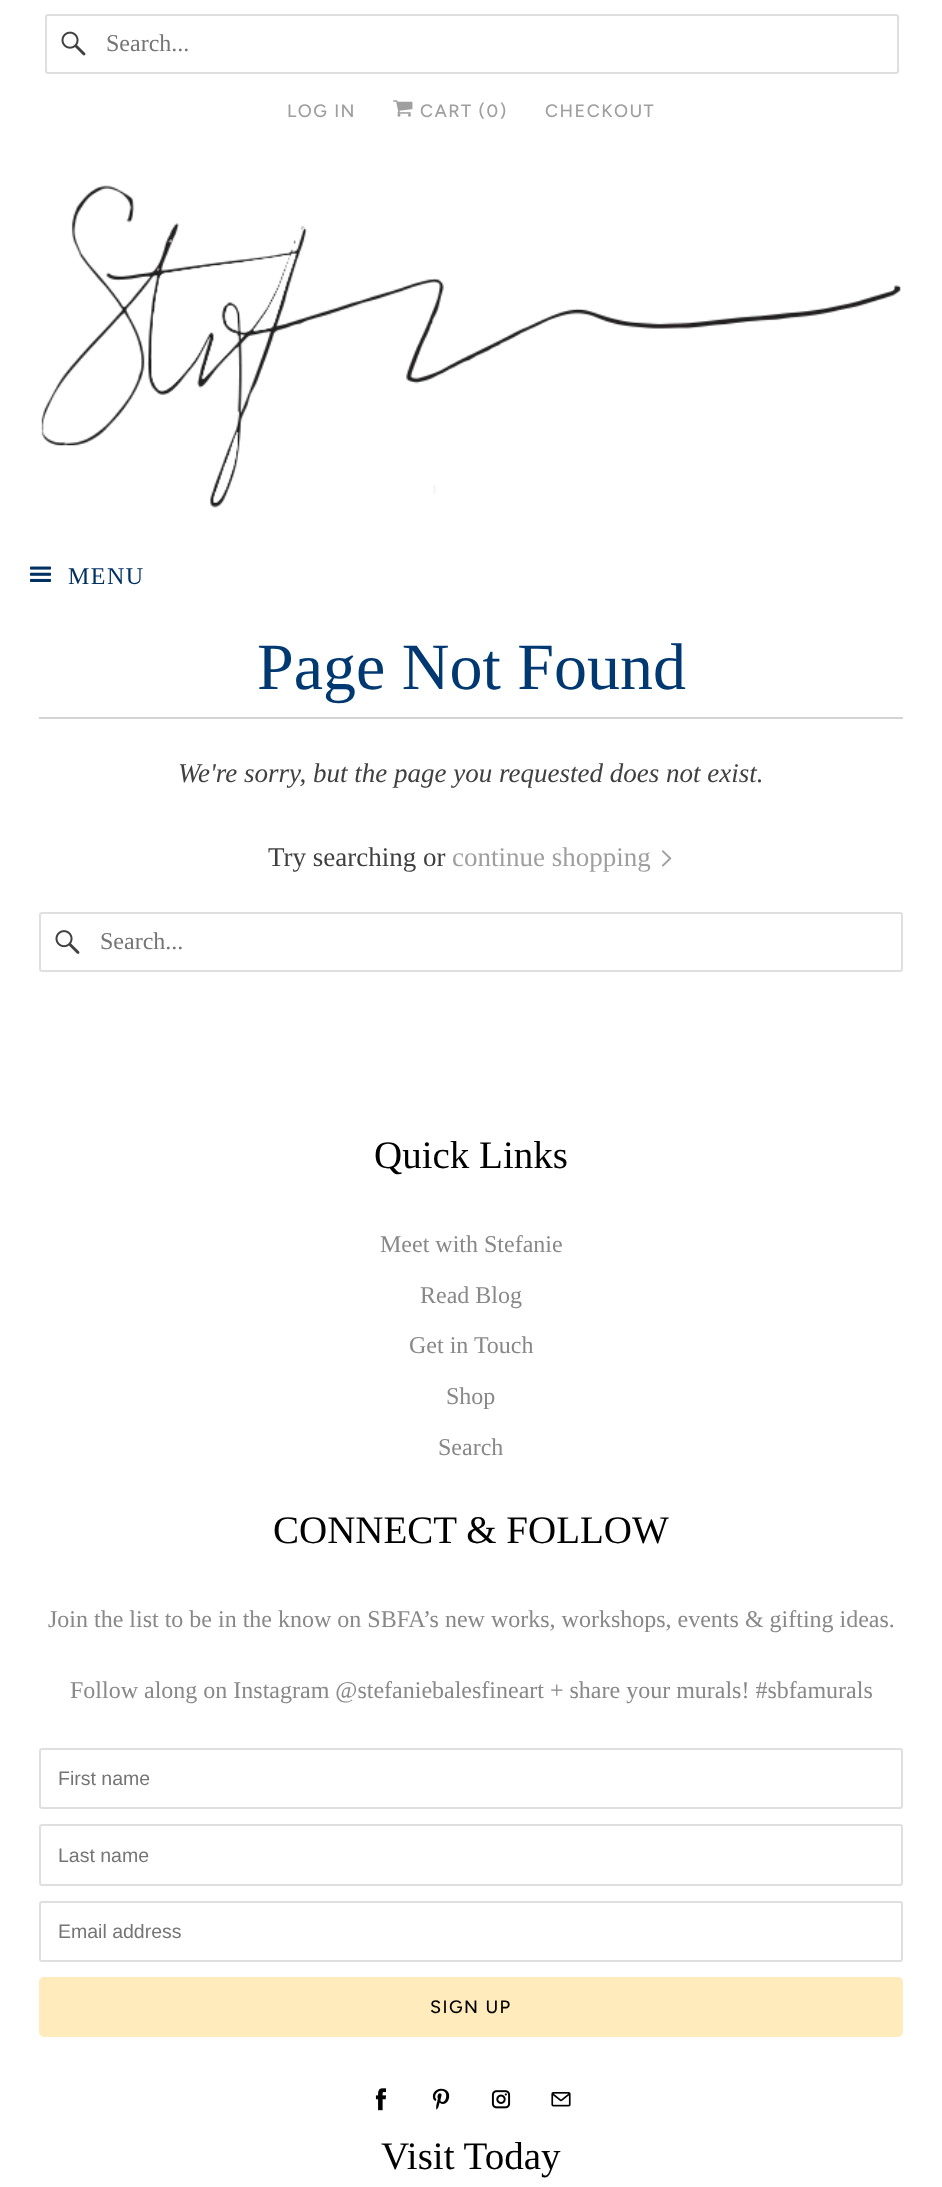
(async () => {
    const canvas = document.querySelector("canvas");
    canvas.width = 942;
    canvas.height = 2187;
    const context = canvas.getContext("2d");
    context.miterLimit = 4;
    context.fontKerning = "normal";
    function write(s, x, y, font, color) {
        context.font = font;
        context.fillStyle = color;
        context.fillText(s, x, y);
    }
    function block(x, y, w, h, color) {
        context.fillStyle = color;
        context.fillRect(x, y, w, h);
    }
    async function photo(src, x, y, w, h) {
        const img = new Image();
        img.src = src;
        await img.decode();
        context.drawImage(img, x, y, w, h);
    }

    block(0, 0, 942, 2187, "rgb(255, 255, 255)");
    context.beginPath();
    context.roundRect(46, 15, 852, 58, 2);
    context.strokeStyle = "rgb(223, 223, 223)";
    context.lineWidth = 2;
    context.stroke();
    await photo("media/1.png", 61, 31, 25, 25);
    write("Search...", 106, 51, "24px Liberation Serif", "rgb(117, 117, 117)");
    context.letterSpacing = "1.5px";
    write("LOG IN", 287, 117, "500 18px Figtree", "rgb(159, 159, 159)");
    await photo("media/2.png", 393, 100, 20, 17);
    write("CART (0)", 420, 117, "500 18px Figtree", "rgb(159, 159, 159)");
    write("CHECKOUT", 545, 117, "500 18px Figtree", "rgb(159, 159, 159)");
    await photo("media/3.png", 41, 185, 860, 323);
    await photo("media/4.png", 30, 566, 21, 16);
    write("MENU", 68, 584, "24px Liberation Serif", "rgb(0, 49, 99)");
    block(39, 717, 864, 2, "rgb(211, 211, 211)");
    context.letterSpacing = "0px";
    write("Page Not Found", 257, 689, "66px Liberation Serif", "rgb(0, 56, 114)");
    write("We're sorry, but the page you requested does not exist.", 178, 782, "italic 27px Liberation Serif", "rgb(64, 64, 64)");
    write("Try searching or", 268, 866, "27px Liberation Serif", "rgb(64, 64, 64)");
    write("continue shopping", 452, 866, "27px Liberation Serif", "rgb(159, 159, 159)");
    await photo("media/5.png", 662, 850, 10, 17);
    context.beginPath();
    context.roundRect(40, 913, 862, 58, 2);
    context.stroke();
    await photo("media/6.png", 55, 930, 25, 24);
    write("Search...", 100, 949, "24px Liberation Serif", "rgb(117, 117, 117)");
    write("Quick Links", 374, 1168, "39px Liberation Serif", "rgb(0, 0, 0)");
    write("Meet with Stefanie", 380, 1252, "24px Liberation Serif", "rgb(136, 136, 136)");
    write("Read Blog", 420, 1303, "24px Liberation Serif", "rgb(136, 136, 136)");
    write("Get in Touch", 409, 1353, "24px Liberation Serif", "rgb(136, 136, 136)");
    write("Shop", 446, 1404, "24px Liberation Serif", "rgb(136, 136, 136)");
    write("Search", 438, 1455, "24px Liberation Serif", "rgb(136, 136, 136)");
    write("CONNECT & FOLLOW", 273, 1543, "39px Liberation Serif", "rgb(0, 0, 0)");
    write("Join the list to be in the know on SBFA’s new works, workshops, events & gifting ideas.", 48, 1627, "24px Liberation Serif", "rgb(136, 136, 136)");
    write("Follow along on Instagram @stefaniebalesfineart + share your murals! #sbfamurals", 70, 1698, "24px Liberation Serif", "rgb(136, 136, 136)");
    context.beginPath();
    context.roundRect(40, 1749, 862, 59, 2);
    context.stroke();
    write("First name", 58, 1785, "19.5px Liberation Sans", "rgb(117, 117, 117)");
    context.beginPath();
    context.roundRect(40, 1825, 862, 60, 2);
    context.stroke();
    write("Last name", 58, 1862, "19.5px Liberation Sans", "rgb(117, 117, 117)");
    context.beginPath();
    context.roundRect(40, 1902, 862, 59, 2);
    context.stroke();
    write("Email address", 58, 1938, "19.5px Liberation Sans", "rgb(117, 117, 117)");
    context.fillStyle = "rgb(255, 235, 187)";
    context.beginPath();
    context.roundRect(40, 1978, 862, 58, 4);
    context.fill();
    context.strokeStyle = "rgb(255, 235, 187)";
    context.stroke();
    context.letterSpacing = "1.5px";
    write("SIGN UP", 430, 2013, "500 18px Figtree", "rgb(0, 0, 0)");
    await photo("media/7.png", 375, 2088, 12, 23);
    await photo("media/8.png", 432, 2088, 18, 22);
    await photo("media/9.png", 491, 2090, 20, 19);
    await photo("media/10.png", 551, 2092, 20, 15);
    context.letterSpacing = "0px";
    write("Visit Today", 381, 2169, "39px Liberation Serif", "rgb(0, 0, 0)");
})();
